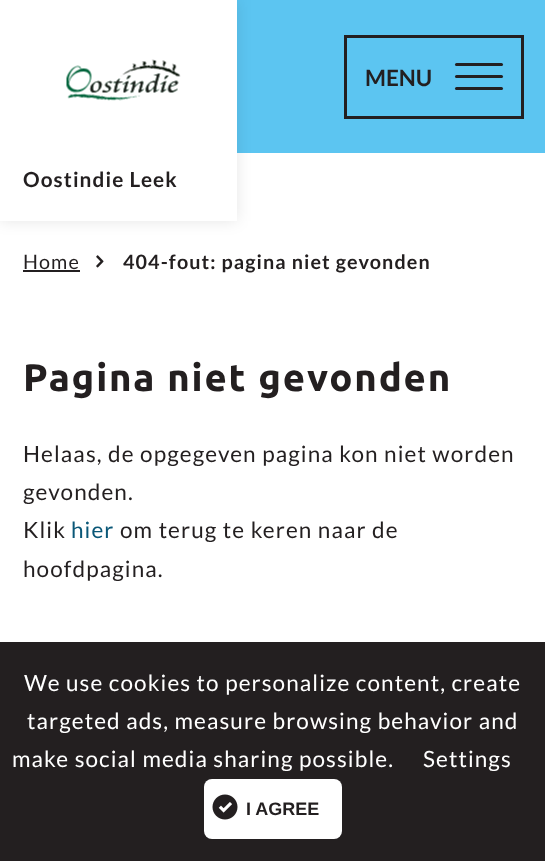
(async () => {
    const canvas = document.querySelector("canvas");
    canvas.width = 545;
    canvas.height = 861;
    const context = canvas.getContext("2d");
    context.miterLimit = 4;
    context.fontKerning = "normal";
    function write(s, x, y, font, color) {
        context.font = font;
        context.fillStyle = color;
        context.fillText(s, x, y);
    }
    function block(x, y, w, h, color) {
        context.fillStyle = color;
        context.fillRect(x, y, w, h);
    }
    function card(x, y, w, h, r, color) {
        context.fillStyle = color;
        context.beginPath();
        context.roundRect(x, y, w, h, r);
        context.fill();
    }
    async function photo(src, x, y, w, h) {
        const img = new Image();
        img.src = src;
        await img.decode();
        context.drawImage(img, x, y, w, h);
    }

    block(0, 0, 545, 861, "rgb(255, 255, 255)");
    block(237, 0, 308, 153, "rgb(92, 197, 241)");
    context.strokeStyle = "rgb(35, 31, 32)";
    context.lineWidth = 3;
    context.strokeRect(345.5, 36.5, 177, 81);
    write("MENU", 365, 86, "bold 22.5px Lato", "rgb(35, 31, 32)");
    card(455, 63, 48, 3, 1.5, "rgb(35, 31, 32)");
    card(455, 75, 48, 3, 1.5, "rgb(35, 31, 32)");
    card(455, 87, 48, 3, 1.5, "rgb(35, 31, 32)");
    context.fillStyle = "rgba(0, 0, 0, 0.1)";
    context.filter = "blur(7.5px)";
    context.beginPath();
    context.rect(0, 0, 237, 221);
    context.fill();
    context.filter = "none";
    block(0, 0, 237, 221, "rgb(255, 255, 255)");
    await photo("media/1.png", 66, 59, 115, 42);
    context.letterSpacing = "1.1px";
    write("Oostindie Leek", 23, 187, "bold 20.75px Lato", "rgb(35, 31, 32)");
    write("Home", 23, 269, "19.75px Lato", "rgb(35, 31, 32)");
    block(23, 270, 57, 2, "rgb(35, 31, 32)");
    await photo("media/2.png", 96, 255, 8, 13);
    write("404-fout: pagina niet gevonden", 123, 269, "bold 19.75px Lato", "rgb(35, 31, 32)");
    context.letterSpacing = "1.8px";
    write("Pagina niet gevonden", 23, 391, "bold 38.25px Ubuntu", "rgb(35, 31, 32)");
    context.letterSpacing = "1.1px";
    write("Helaas, de opgegeven pagina kon niet worden", 23, 462, "22.5px Lato", "rgb(35, 31, 32)");
    write("gevonden.", 23, 500, "22.5px Lato", "rgb(35, 31, 32)");
    write("Klik", 23, 538, "22.5px Lato", "rgb(35, 31, 32)");
    write("hier", 71, 538, "22.5px Lato", "rgb(10, 87, 119)");
    write("om terug te keren naar de", 120, 538, "22.5px Lato", "rgb(35, 31, 32)");
    write("hoofdpagina.", 23, 577, "22.5px Lato", "rgb(35, 31, 32)");
    block(0, 642, 545, 219, "rgb(35, 31, 32)");
    write("We use cookies to personalize content, create", 24, 691, "22.5px Lato", "rgb(255, 255, 255)");
    write("targeted ads, measure browsing behavior and", 27, 729, "22.5px Lato", "rgb(255, 255, 255)");
    write("make social media sharing possible.", 12, 767, "22.5px Lato", "rgb(255, 255, 255)");
    write("Settings", 423, 767, "22.5px Lato", "rgb(255, 255, 255)");
    card(204, 779, 138, 60, 8, "rgb(255, 255, 255)");
    await photo("media/3.png", 212, 794, 26, 26);
    context.letterSpacing = "0px";
    write("I AGREE", 246, 815, "bold 18px Liberation Sans", "rgb(35, 31, 32)");
})();
